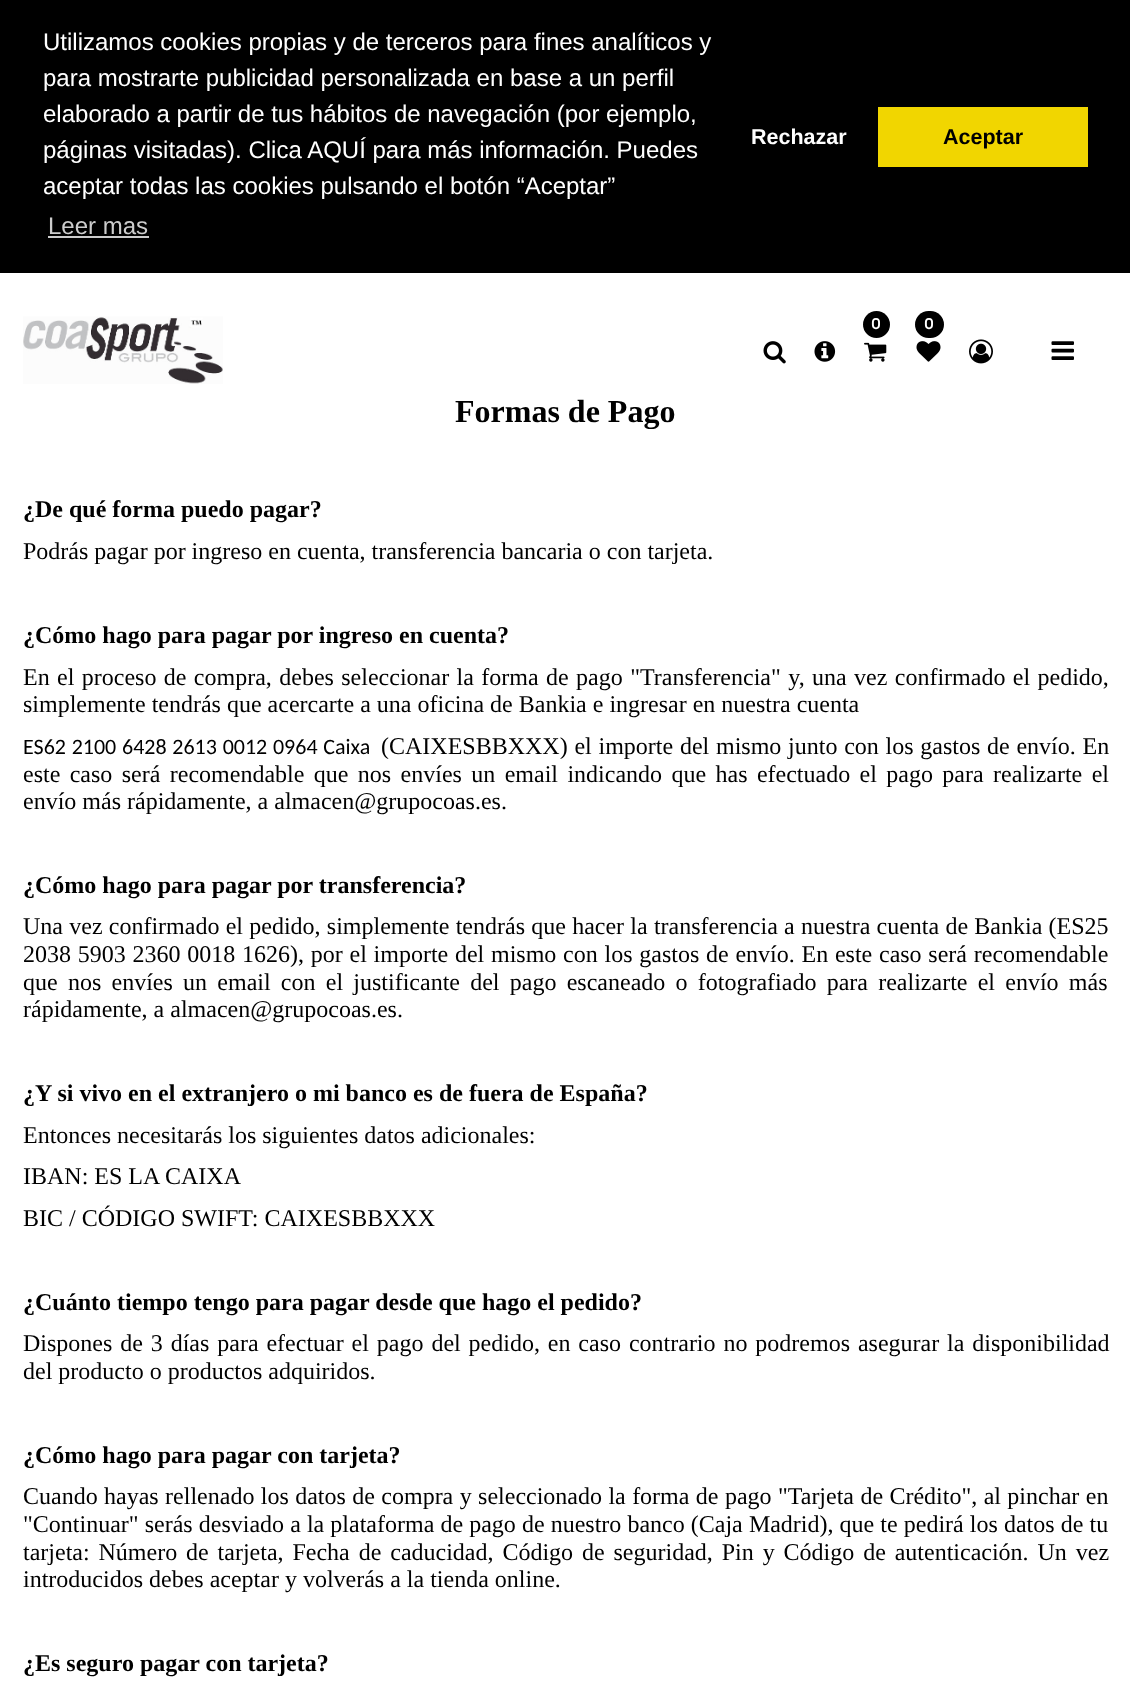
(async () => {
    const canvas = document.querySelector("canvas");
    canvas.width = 1130;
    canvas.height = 1707;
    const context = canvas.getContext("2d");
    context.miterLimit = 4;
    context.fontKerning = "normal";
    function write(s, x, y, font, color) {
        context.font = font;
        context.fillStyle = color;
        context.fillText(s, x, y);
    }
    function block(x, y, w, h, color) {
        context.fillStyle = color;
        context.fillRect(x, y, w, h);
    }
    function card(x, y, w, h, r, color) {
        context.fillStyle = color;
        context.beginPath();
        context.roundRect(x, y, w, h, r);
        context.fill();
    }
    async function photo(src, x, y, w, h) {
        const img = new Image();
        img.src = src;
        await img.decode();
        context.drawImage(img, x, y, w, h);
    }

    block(0, 0, 1130, 1707, "rgb(255, 255, 255)");
    block(0, 0, 1130, 273, "rgb(0, 0, 0)");
    write("Utilizamos cookies propias y de terceros para fines analíticos y", 43, 50, "24px Liberation Sans", "rgb(255, 255, 255)");
    write("para mostrarte publicidad personalizada en base a un perfil", 43, 86, "24px Liberation Sans", "rgb(255, 255, 255)");
    write("elaborado a partir de tus hábitos de navegación (por ejemplo,", 43, 122, "24px Liberation Sans", "rgb(255, 255, 255)");
    write("páginas visitadas). Clica AQUÍ para más información. Puedes", 43, 158, "24px Liberation Sans", "rgb(255, 255, 255)");
    write("aceptar todas las cookies pulsando el botón “Aceptar”", 43, 194, "24px Liberation Sans", "rgb(255, 255, 255)");
    write("Leer mas", 48, 234, "24px Liberation Sans", "rgb(204, 204, 204)");
    block(48, 236, 101, 2, "rgb(204, 204, 204)");
    write("Rechazar", 751, 144, "bold 21.5px Liberation Sans", "rgb(255, 255, 255)");
    block(878, 107, 210, 60, "rgb(241, 214, 0)");
    write("Aceptar", 943, 144, "bold 21.5px Liberation Sans", "rgb(0, 0, 0)");
    await photo("media/1.png", 23, 316, 200, 68);
    context.beginPath();
    context.arc(876.5, 324.5, 13.5, 0, Math.PI * 2);
    context.fill();
    write("0", 871, 329, "bold 15px Rubik", "rgb(255, 255, 255)");
    await photo("media/2.png", 864, 342, 23, 20);
    card(915, 311, 29, 27, 13.5, "rgb(0, 0, 0)");
    write("0", 924, 329, "bold 15px Rubik", "rgb(255, 255, 255)");
    await photo("media/3.png", 916, 341, 25, 21);
    await photo("media/4.png", 763, 341, 23, 23);
    await photo("media/5.png", 814, 341, 22, 21);
    await photo("media/6.png", 969, 339, 24, 25);
    await photo("media/7.png", 1051, 341, 23, 19);
    write("Formas de Pago", 455, 422, "bold 32px Liberation Serif", "rgb(0, 0, 0)");
    write("¿De qué forma puedo pagar?", 23, 517, "bold 24px Liberation Serif", "rgb(0, 0, 0)");
    write("Podrás pagar por ingreso en cuenta, transferencia bancaria o con tarjeta.", 23, 559, "24px Liberation Serif", "rgb(0, 0, 0)");
    write("¿Cómo hago para pagar por ingreso en cuenta?", 23, 643, "bold 24px Liberation Serif", "rgb(0, 0, 0)");
    context.wordSpacing = "1.4px";
    write("En el proceso de compra, debes seleccionar la forma de pago \"Transferencia\" y, una vez confirmado el pedido,", 23, 685, "24px Liberation Serif", "rgb(0, 0, 0)");
    context.wordSpacing = "0px";
    write("simplemente tendrás que acercarte a una oficina de Bankia e ingresar en nuestra cuenta", 23, 712, "24px Liberation Serif", "rgb(0, 0, 0)");
    context.wordSpacing = "0.75px";
    write("ES62 2100 6428 2613 0012 0964 Caixa", 23, 754, "22px Carlito", "rgb(0, 0, 0)");
    write("(CAIXESBBXXX) el importe del mismo junto con los gastos de envío. En", 381, 754, "24px Liberation Serif", "rgb(0, 0, 0)");
    context.wordSpacing = "3.4px";
    write("este caso será recomendable que nos envíes un email indicando que has efectuado el pago para realizarte el", 23, 782, "24px Liberation Serif", "rgb(0, 0, 0)");
    context.wordSpacing = "0px";
    write("envío más rápidamente, a almacen@grupocoas.es.", 23, 809, "24px Liberation Serif", "rgb(0, 0, 0)");
    write("¿Cómo hago para pagar por transferencia?", 23, 893, "bold 24px Liberation Serif", "rgb(0, 0, 0)");
    context.wordSpacing = "0.25px";
    write("Una vez confirmado el pedido, simplemente tendrás que hacer la transferencia a nuestra cuenta de Bankia (ES25", 23, 934, "24px Liberation Serif", "rgb(0, 0, 0)");
    context.wordSpacing = "0.75px";
    write("2038 5903 2360 0018 1626), por el importe del mismo con los gastos de envío. En este caso será recomendable", 23, 962, "24px Liberation Serif", "rgb(0, 0, 0)");
    context.wordSpacing = "4.25px";
    write("que nos envíes un email con el justificante del pago escaneado o fotografiado para realizarte el envío más", 23, 990, "24px Liberation Serif", "rgb(0, 0, 0)");
    context.wordSpacing = "0px";
    write("rápidamente, a almacen@grupocoas.es.", 23, 1017, "24px Liberation Serif", "rgb(0, 0, 0)");
    write("¿Y si vivo en el extranjero o mi banco es de fuera de España?", 23, 1101, "bold 24px Liberation Serif", "rgb(0, 0, 0)");
    write("Entonces necesitarás los siguientes datos adicionales:", 23, 1143, "24px Liberation Serif", "rgb(0, 0, 0)");
    write("IBAN: ES LA CAIXA", 23, 1184, "24px Liberation Serif", "rgb(0, 0, 0)");
    write("BIC / CÓDIGO SWIFT: CAIXESBBXXX", 23, 1226, "24px Liberation Serif", "rgb(0, 0, 0)");
    write("¿Cuánto tiempo tengo para pagar desde que hago el pedido?", 23, 1310, "bold 24px Liberation Serif", "rgb(0, 0, 0)");
    context.wordSpacing = "1.9px";
    write("Dispones de 3 días para efectuar el pago del pedido, en caso contrario no podremos asegurar la disponibilidad", 23, 1351, "24px Liberation Serif", "rgb(0, 0, 0)");
    context.wordSpacing = "0px";
    write("del producto o productos adquiridos.", 23, 1379, "24px Liberation Serif", "rgb(0, 0, 0)");
    write("¿Cómo hago para pagar con tarjeta?", 23, 1463, "bold 24px Liberation Serif", "rgb(0, 0, 0)");
    context.wordSpacing = "0.4px";
    write("Cuando hayas rellenado los datos de compra y seleccionado la forma de pago \"Tarjeta de Crédito\", al pinchar en", 23, 1504, "24px Liberation Serif", "rgb(0, 0, 0)");
    context.wordSpacing = "0.1px";
    write("\"Continuar\" serás desviado a la plataforma de pago de nuestro banco (Caja Madrid), que te pedirá los datos de tu", 23, 1532, "24px Liberation Serif", "rgb(0, 0, 0)");
    context.wordSpacing = "2.9px";
    write("tarjeta: Número de tarjeta, Fecha de caducidad, Código de seguridad, Pin y Código de autenticación. Un vez", 23, 1560, "24px Liberation Serif", "rgb(0, 0, 0)");
    context.wordSpacing = "0px";
    write("introducidos debes aceptar y volverás a la tienda online.", 23, 1587, "24px Liberation Serif", "rgb(0, 0, 0)");
    write("¿Es seguro pagar con tarjeta?", 23, 1671, "bold 24px Liberation Serif", "rgb(0, 0, 0)");
})();
